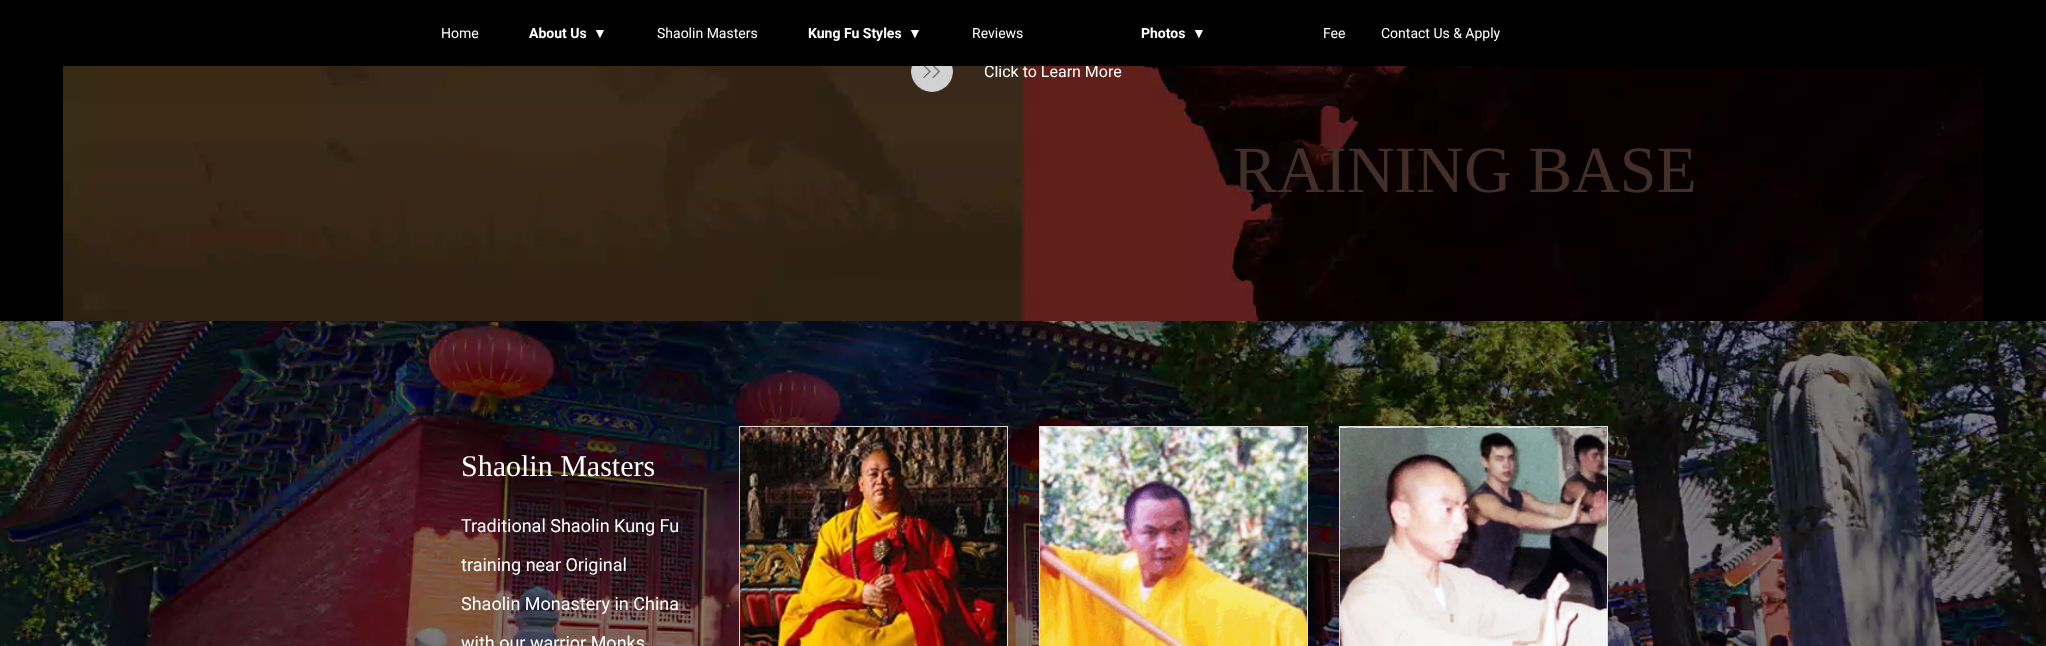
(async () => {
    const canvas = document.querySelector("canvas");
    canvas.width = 2046;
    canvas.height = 646;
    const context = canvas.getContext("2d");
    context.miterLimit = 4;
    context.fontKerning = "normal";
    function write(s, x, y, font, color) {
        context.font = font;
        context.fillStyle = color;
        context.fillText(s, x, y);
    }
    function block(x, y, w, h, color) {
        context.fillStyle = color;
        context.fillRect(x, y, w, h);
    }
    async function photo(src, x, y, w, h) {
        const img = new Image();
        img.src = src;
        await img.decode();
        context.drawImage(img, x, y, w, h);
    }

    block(0, 0, 2046, 646, "rgb(0, 0, 0)");
    await photo("media/1.png", 63, 66, 1920, 255);
    write("Click to Learn More", 984, 77, "16px Roboto", "rgb(255, 255, 255)");
    block(987, 65, 111, 1, "rgb(0, 0, 0)");
    write("Home", 441, 38, "14px Roboto", "rgb(255, 255, 255)");
    write("About Us", 529, 38, "bold 14px Roboto", "rgb(255, 255, 255)");
    write("▼", 593, 38, "bold 14px Liberation Sans", "rgb(255, 255, 255)");
    write("Shaolin Masters", 657, 38, "14px Roboto", "rgb(255, 255, 255)");
    write("Kung Fu Styles", 808, 38, "bold 14px Roboto", "rgb(255, 255, 255)");
    write("▼", 908, 38, "bold 14px Liberation Sans", "rgb(255, 255, 255)");
    write("Reviews", 972, 38, "14px Roboto", "rgb(255, 255, 255)");
    write("Photos", 1141, 38, "bold 14px Roboto", "rgb(255, 255, 255)");
    write("▼", 1192, 38, "bold 14px Liberation Sans", "rgb(255, 255, 255)");
    write("Fee", 1323, 38, "14px Roboto", "rgb(255, 255, 255)");
    write("Contact Us & Apply", 1381, 38, "14px Roboto", "rgb(255, 255, 255)");
    await photo("media/2.png", 911, 66, 42, 26);
    write("RAINING BASE", 1233, 192, "66px Liberation Serif", "rgb(66, 48, 40)");
    await photo("media/3.png", 0, 321, 2046, 325);
    write("Shaolin Masters", 461, 476, "30px Liberation Serif", "rgb(255, 255, 255)");
    write("Traditional Shaolin Kung Fu", 461, 532, "18px Roboto", "rgb(255, 255, 255)");
    write("training near Original", 461, 571, "18px Roboto", "rgb(255, 255, 255)");
    write("Shaolin Monastery in China", 461, 610, "18px Roboto", "rgb(255, 255, 255)");
    write("with our warrior Monks", 461, 649, "18px Roboto", "rgb(255, 255, 255)");
    context.strokeStyle = "rgb(221, 221, 221)";
    context.strokeRect(739.5, 426.5, 268, 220);
    await photo("media/4.png", 740, 427, 267, 219);
    context.strokeRect(1039.5, 426.5, 268, 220);
    await photo("media/5.png", 1040, 427, 267, 219);
    context.strokeRect(1339.5, 426.5, 268, 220);
    await photo("media/6.png", 1340, 427, 267, 219);
})();
